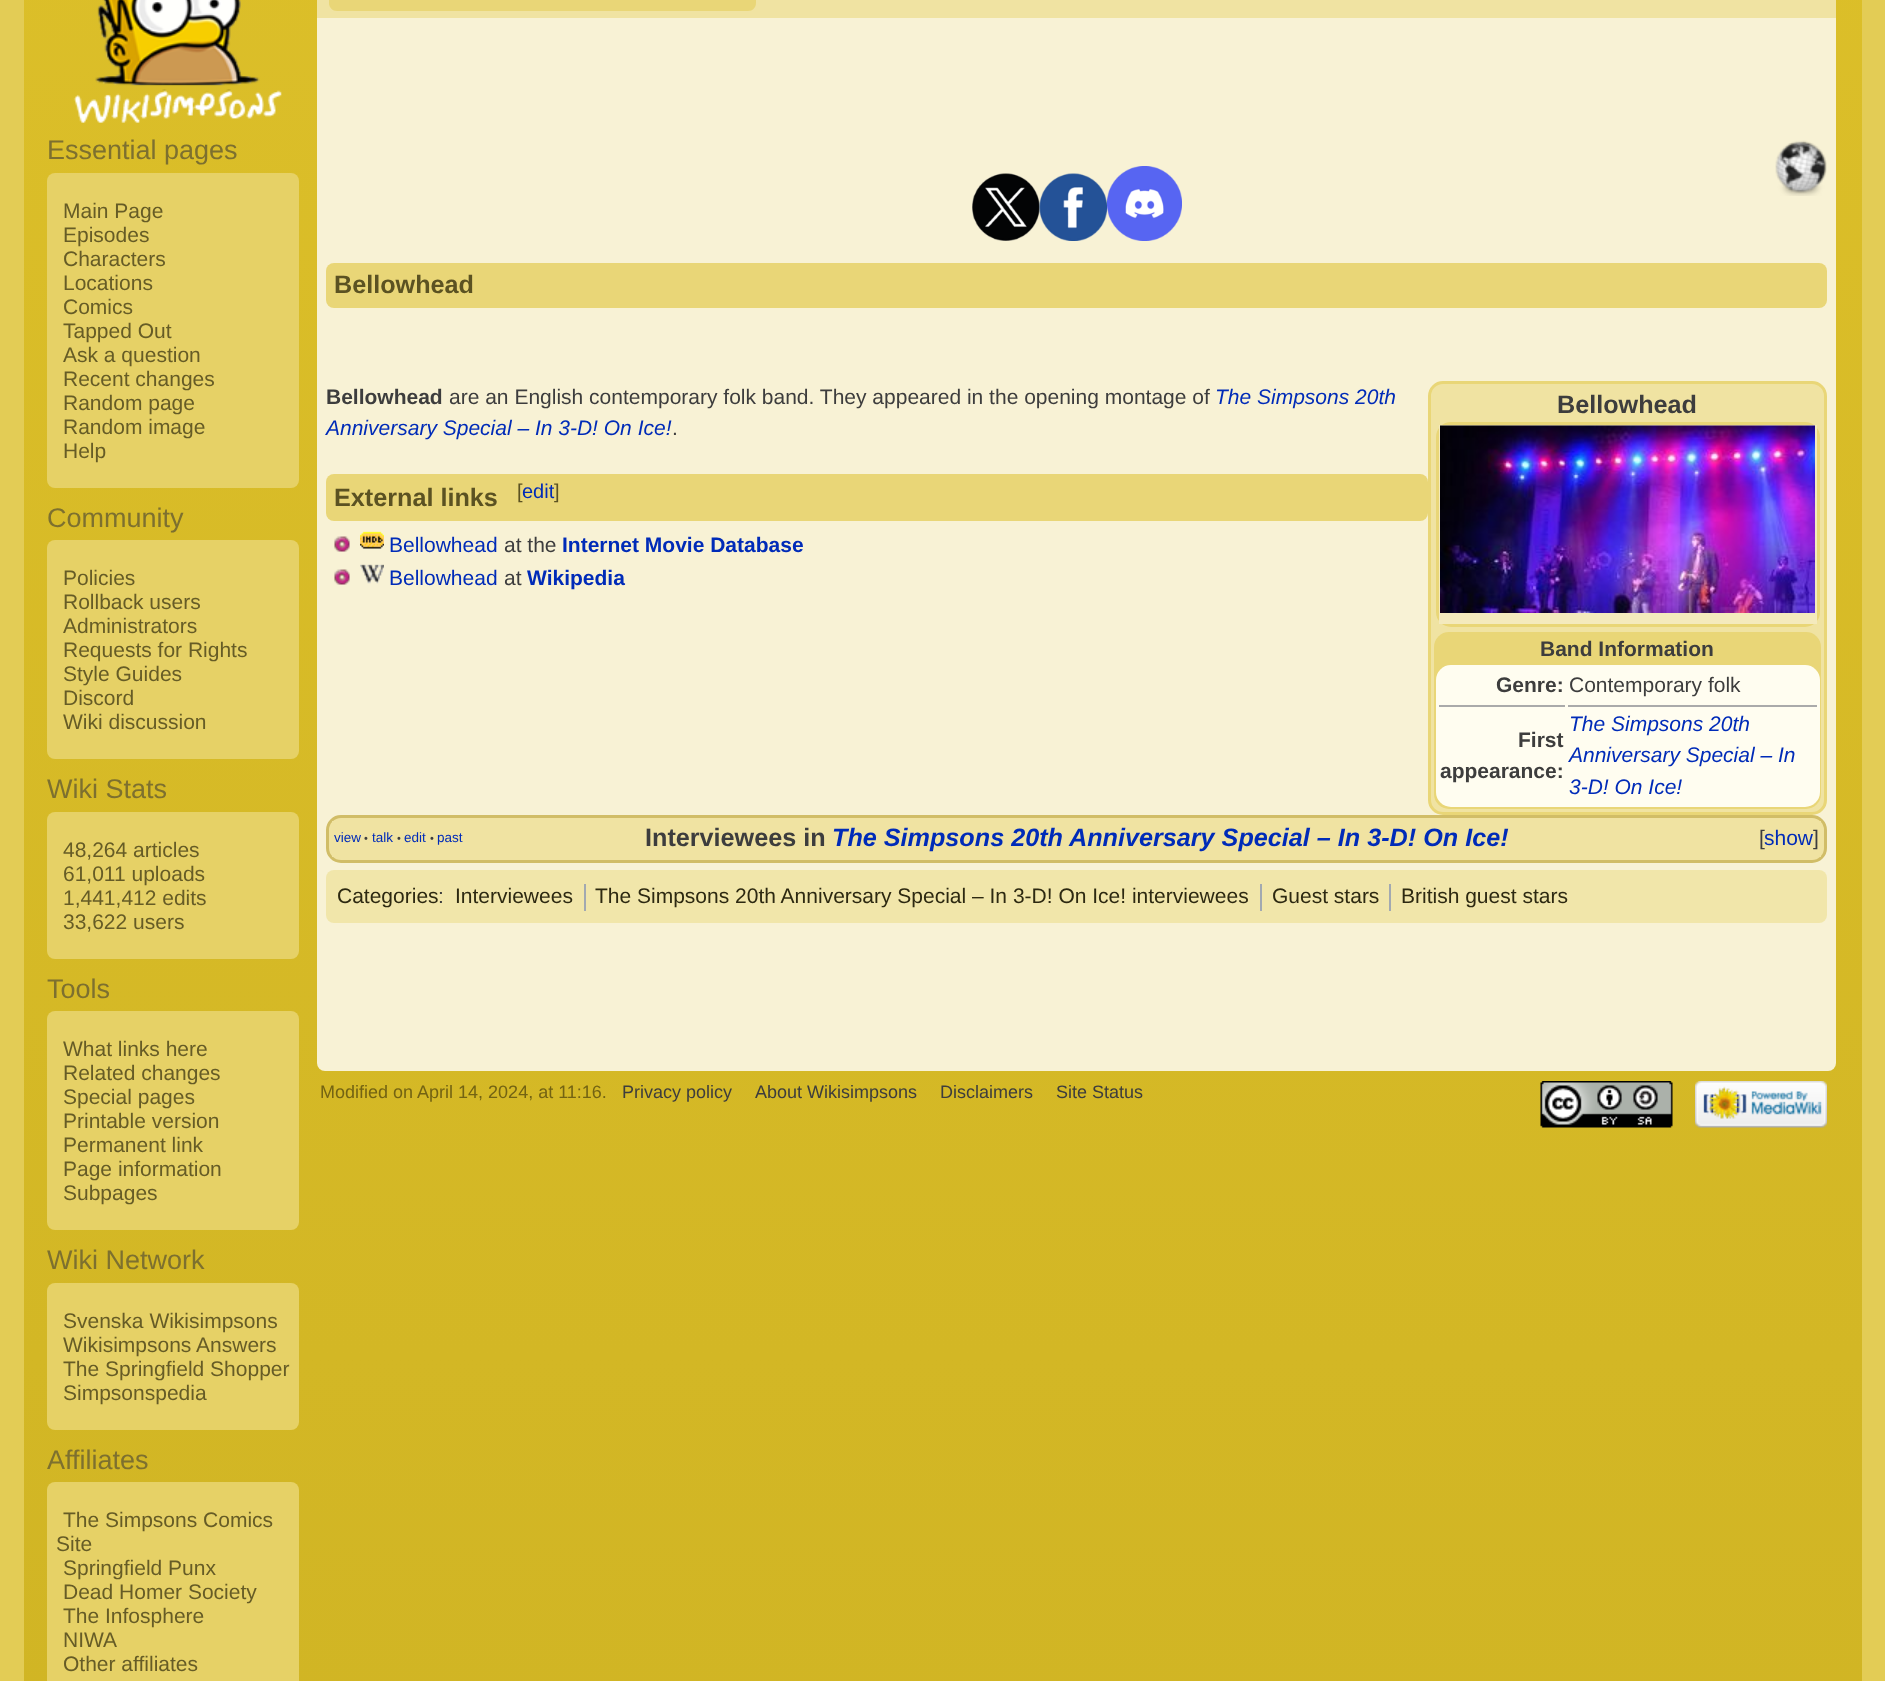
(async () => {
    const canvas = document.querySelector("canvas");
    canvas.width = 1885;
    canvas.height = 1681;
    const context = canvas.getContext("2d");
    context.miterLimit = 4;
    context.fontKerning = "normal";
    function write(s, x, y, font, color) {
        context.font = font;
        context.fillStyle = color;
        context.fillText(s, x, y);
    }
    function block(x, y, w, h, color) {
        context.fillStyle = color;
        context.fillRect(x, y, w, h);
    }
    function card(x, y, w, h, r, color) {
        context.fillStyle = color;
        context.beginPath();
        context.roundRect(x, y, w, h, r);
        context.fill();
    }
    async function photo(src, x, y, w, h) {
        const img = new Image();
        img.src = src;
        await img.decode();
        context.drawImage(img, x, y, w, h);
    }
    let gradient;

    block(0, 0, 1885, 1681, "rgb(227, 204, 85)");
    gradient = context.createLinearGradient(943, -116, 943, 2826);
    gradient.addColorStop(0, "rgb(220, 191, 41)");
    gradient.addColorStop(1, "rgb(202, 175, 33)");
    context.fillStyle = gradient;
    context.fillRect(24, 0, 1838, 1681);
    await photo("media/1.png", 73, 0, 209, 123);
    write("Essential pages", 47, 159, "27px Liberation Sans", "rgb(125, 112, 47)");
    card(47, 173, 252, 315, 8, "rgb(230, 209, 102)");
    write("Main Page", 63, 218, "21px Liberation Sans", "rgb(102, 92, 38)");
    write("Episodes", 63, 242, "21px Liberation Sans", "rgb(102, 92, 38)");
    write("Characters", 63, 266, "21px Liberation Sans", "rgb(102, 92, 38)");
    write("Locations", 63, 290, "21px Liberation Sans", "rgb(102, 92, 38)");
    write("Comics", 63, 314, "21px Liberation Sans", "rgb(102, 92, 38)");
    write("Tapped Out", 63, 338, "21px Liberation Sans", "rgb(102, 92, 38)");
    write("Ask a question", 63, 362, "21px Liberation Sans", "rgb(102, 92, 38)");
    write("Recent changes", 63, 386, "21px Liberation Sans", "rgb(102, 92, 38)");
    write("Random page", 63, 410, "21px Liberation Sans", "rgb(102, 92, 38)");
    write("Random image", 63, 434, "21px Liberation Sans", "rgb(102, 92, 38)");
    write("Help", 63, 458, "21px Liberation Sans", "rgb(102, 92, 38)");
    write("Community", 47, 527, "27px Liberation Sans", "rgb(125, 112, 47)");
    card(47, 540, 252, 219, 8, "rgb(230, 209, 102)");
    write("Policies", 63, 585, "21px Liberation Sans", "rgb(102, 92, 38)");
    write("Rollback users", 63, 609, "21px Liberation Sans", "rgb(102, 92, 38)");
    write("Administrators", 63, 633, "21px Liberation Sans", "rgb(102, 92, 38)");
    write("Requests for Rights", 63, 657, "21px Liberation Sans", "rgb(102, 92, 38)");
    write("Style Guides", 63, 681, "21px Liberation Sans", "rgb(102, 92, 38)");
    write("Discord", 63, 705, "21px Liberation Sans", "rgb(102, 92, 38)");
    write("Wiki discussion", 63, 729, "21px Liberation Sans", "rgb(102, 92, 38)");
    write("Wiki Stats", 47, 798, "27px Liberation Sans", "rgb(125, 112, 47)");
    card(47, 812, 252, 147, 8, "rgb(230, 209, 102)");
    write("48,264 articles", 63, 857, "21px Liberation Sans", "rgb(102, 92, 38)");
    write("61,011 uploads", 63, 881, "21px Liberation Sans", "rgb(102, 92, 38)");
    write("1,441,412 edits", 63, 905, "21px Liberation Sans", "rgb(102, 92, 38)");
    write("33,622 users", 63, 929, "21px Liberation Sans", "rgb(102, 92, 38)");
    write("Tools", 47, 998, "27px Liberation Sans", "rgb(125, 112, 47)");
    card(47, 1011, 252, 219, 8, "rgb(230, 209, 102)");
    write("What links here", 63, 1056, "21px Liberation Sans", "rgb(102, 92, 38)");
    write("Related changes", 63, 1080, "21px Liberation Sans", "rgb(102, 92, 38)");
    write("Special pages", 63, 1104, "21px Liberation Sans", "rgb(102, 92, 38)");
    write("Printable version", 63, 1128, "21px Liberation Sans", "rgb(102, 92, 38)");
    write("Permanent link", 63, 1152, "21px Liberation Sans", "rgb(102, 92, 38)");
    write("Page information", 63, 1176, "21px Liberation Sans", "rgb(102, 92, 38)");
    write("Subpages", 63, 1200, "21px Liberation Sans", "rgb(102, 92, 38)");
    write("Wiki Network", 47, 1269, "27px Liberation Sans", "rgb(125, 112, 47)");
    card(47, 1283, 252, 147, 8, "rgb(230, 209, 102)");
    write("Svenska Wikisimpsons", 63, 1328, "21px Liberation Sans", "rgb(102, 92, 38)");
    write("Wikisimpsons Answers", 63, 1352, "21px Liberation Sans", "rgb(102, 92, 38)");
    write("The Springfield Shopper", 63, 1376, "21px Liberation Sans", "rgb(102, 92, 38)");
    write("Simpsonspedia", 63, 1400, "21px Liberation Sans", "rgb(102, 92, 38)");
    write("Affiliates", 47, 1469, "27px Liberation Sans", "rgb(125, 112, 47)");
    card(47, 1482, 252, 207, 8, "rgb(230, 209, 102)");
    write("The Simpsons Comics", 63, 1527, "21px Liberation Sans", "rgb(102, 92, 38)");
    write("Site", 56, 1551, "21px Liberation Sans", "rgb(102, 92, 38)");
    write("Springfield Punx", 63, 1575, "21px Liberation Sans", "rgb(102, 92, 38)");
    write("Dead Homer Society", 63, 1599, "21px Liberation Sans", "rgb(102, 92, 38)");
    write("The Infosphere", 63, 1623, "21px Liberation Sans", "rgb(102, 92, 38)");
    write("NIWA", 63, 1647, "21px Liberation Sans", "rgb(102, 92, 38)");
    write("Other affiliates", 63, 1671, "21px Liberation Sans", "rgb(102, 92, 38)");
    block(317, 0, 1519, 18, "rgb(240, 227, 162)");
    context.fillStyle = "rgb(233, 214, 119)";
    context.beginPath();
    context.moveTo(337, -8);
    context.lineTo(399, -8);
    context.lineTo(399, 11);
    context.lineTo(337, 11);
    context.bezierCurveTo(332.5, 11, 329, 7.5, 329, 3);
    context.lineTo(329, 0);
    context.bezierCurveTo(329, -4.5, 332.5, -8, 337, -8);
    context.closePath();
    context.fill();
    block(399, 0, 272, 11, "rgb(233, 214, 119)");
    context.beginPath();
    context.moveTo(671, -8);
    context.lineTo(748, -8);
    context.bezierCurveTo(752.5, -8, 756, -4.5, 756, 0);
    context.lineTo(756, 3);
    context.bezierCurveTo(756, 7.5, 752.5, 11, 748, 11);
    context.lineTo(671, 11);
    context.closePath();
    context.fill();
    context.fillStyle = "rgb(248, 242, 213)";
    context.beginPath();
    context.roundRect(317, 18, 1519, 1053, [0, 0, 8, 8]);
    context.fill();
    await photo("media/2.png", 972, 173, 68, 68);
    await photo("media/3.png", 1039, 173, 68, 68);
    await photo("media/4.png", 1107, 166, 75, 75);
    card(326, 263, 1501, 45, 8, "rgb(233, 214, 119)");
    write("Bellowhead", 334, 293, "bold 25.2px Liberation Sans", "rgb(91, 82, 34)");
    await photo("media/5.png", 1775, 140, 52, 56);
    write("Bellowhead", 326, 404, "bold 21px Liberation Sans", "rgb(61, 61, 61)");
    write("are an English contemporary folk band. They appeared in the opening montage of", 449, 404, "21px Liberation Sans", "rgb(61, 61, 61)");
    write("The Simpsons 20th", 1215, 404, "italic 21px Liberation Sans", "rgb(0, 43, 184)");
    write("Anniversary Special – In 3-D! On Ice!", 326, 435, "italic 21px Liberation Sans", "rgb(0, 43, 184)");
    write(".", 672, 435, "21px Liberation Sans", "rgb(61, 61, 61)");
    context.fillStyle = "rgb(240, 227, 162)";
    context.beginPath();
    context.roundRect(1429.5, 382.5, 396, 431, 13.5);
    context.fill();
    context.strokeStyle = "rgb(233, 214, 119)";
    context.lineWidth = 3;
    context.stroke();
    write("Bellowhead", 1557, 413, "bold 25.2px Liberation Sans", "rgb(61, 61, 61)");
    card(1436, 422, 384, 205, 15, "rgb(233, 214, 119)");
    block(1439, 425, 378, 199, "rgb(244, 234, 189)");
    await photo("media/6.png", 1440, 425, 375, 188);
    card(1434, 632, 387, 177, 15, "rgb(233, 214, 119)");
    write("Band Information", 1540, 656, "bold 21px Liberation Sans", "rgb(61, 61, 61)");
    card(1436, 665, 384, 142, 15, "rgb(255, 253, 240)");
    write("Genre:", 1496, 692, "bold 21px Liberation Sans", "rgb(61, 61, 61)");
    write("Contemporary folk", 1569, 692, "21px Liberation Sans", "rgb(61, 61, 61)");
    block(1439, 705, 126, 2, "rgb(170, 170, 170)");
    write("First", 1518, 747, "bold 21px Liberation Sans", "rgb(61, 61, 61)");
    write("appearance:", 1440, 778, "bold 21px Liberation Sans", "rgb(61, 61, 61)");
    block(1568, 705, 249, 2, "rgb(170, 170, 170)");
    write("The Simpsons 20th", 1569, 731, "italic 21px Liberation Sans", "rgb(0, 43, 184)");
    write("Anniversary Special – In", 1569, 762, "italic 21px Liberation Sans", "rgb(0, 43, 184)");
    write("3-D! On Ice!", 1569, 794, "italic 21px Liberation Sans", "rgb(0, 43, 184)");
    card(326, 474, 1102, 47, 8, "rgb(233, 214, 119)");
    write("External links", 334, 506, "bold 25.2px Liberation Sans", "rgb(91, 82, 34)");
    write("[", 517, 498, "20px Liberation Sans", "rgb(91, 82, 34)");
    write("edit", 522, 498, "20px Liberation Sans", "rgb(0, 43, 184)");
    write("]", 554, 498, "20px Liberation Sans", "rgb(91, 82, 34)");
    await photo("media/7.png", 334, 536, 16, 16);
    await photo("media/8.png", 360, 531, 24, 18);
    write("Bellowhead", 389, 552, "21px Liberation Sans", "rgb(0, 43, 184)");
    write("at the", 504, 552, "21px Liberation Sans", "rgb(61, 61, 61)");
    write("Internet Movie Database", 562, 552, "bold 21px Liberation Sans", "rgb(0, 43, 184)");
    await photo("media/7.png", 334, 569, 16, 16);
    await photo("media/9.png", 360, 564, 24, 20);
    write("Bellowhead", 389, 585, "21px Liberation Sans", "rgb(0, 43, 184)");
    write("at", 504, 585, "21px Liberation Sans", "rgb(61, 61, 61)");
    write("Wikipedia", 527, 585, "bold 21px Liberation Sans", "rgb(0, 43, 184)");
    context.fillStyle = "rgb(240, 227, 162)";
    context.beginPath();
    context.roundRect(327.5, 816.5, 1498, 45, 13.5);
    context.fill();
    context.strokeStyle = "rgb(209, 189, 103)";
    context.stroke();
    block(332, 821, 1489, 36, "rgb(240, 227, 162)");
    write("view", 334, 842, "13.5px Liberation Sans", "rgb(0, 43, 184)");
    write("•", 364, 842, "11px Liberation Sans", "rgb(61, 61, 61)");
    write("talk", 372, 842, "13.5px Liberation Sans", "rgb(0, 43, 184)");
    write("•", 397, 842, "11px Liberation Sans", "rgb(61, 61, 61)");
    write("edit", 404, 842, "13.5px Liberation Sans", "rgb(0, 43, 184)");
    write("•", 430, 842, "11px Liberation Sans", "rgb(61, 61, 61)");
    write("past", 437, 842, "13.5px Liberation Sans", "rgb(0, 43, 184)");
    write("Interviewees in", 645, 846, "bold 25.2px Liberation Sans", "rgb(61, 61, 61)");
    write("The Simpsons 20th Anniversary Special – In 3-D! On Ice!", 832, 846, "italic bold 25.2px Liberation Sans", "rgb(0, 43, 184)");
    write("[", 1759, 845, "21px Liberation Sans", "rgb(61, 61, 61)");
    write("show", 1764, 845, "21px Liberation Sans", "rgb(0, 43, 184)");
    write("]", 1813, 845, "21px Liberation Sans", "rgb(61, 61, 61)");
    card(326, 870, 1501, 53, 8, "rgb(241, 230, 170)");
    write("Categories", 337, 903, "21px Liberation Sans", "rgb(45, 41, 17)");
    write(":", 438, 903, "21px Liberation Sans", "rgb(61, 61, 61)");
    write("Interviewees", 455, 903, "21px Liberation Sans", "rgb(45, 41, 17)");
    block(584, 884, 2, 27, "rgb(162, 169, 177)");
    write("The Simpsons 20th Anniversary Special – In 3-D! On Ice! interviewees", 595, 903, "21px Liberation Sans", "rgb(45, 41, 17)");
    block(1260, 884, 2, 27, "rgb(162, 169, 177)");
    write("Guest stars", 1272, 903, "21px Liberation Sans", "rgb(45, 41, 17)");
    block(1389, 884, 2, 27, "rgb(162, 169, 177)");
    write("British guest stars", 1401, 903, "21px Liberation Sans", "rgb(45, 41, 17)");
    write("Modified on April 14, 2024, at 11:16.", 320, 1098, "18px Liberation Sans", "rgb(115, 99, 19)");
    write("Privacy policy", 622, 1098, "18px Liberation Sans", "rgb(61, 61, 61)");
    write("About Wikisimpsons", 755, 1098, "18px Liberation Sans", "rgb(61, 61, 61)");
    write("Disclaimers", 940, 1098, "18px Liberation Sans", "rgb(61, 61, 61)");
    write("Site Status", 1056, 1098, "18px Liberation Sans", "rgb(61, 61, 61)");
    await photo("media/10.png", 1540, 1081, 133, 47);
    await photo("media/11.png", 1695, 1081, 132, 47);
})();
